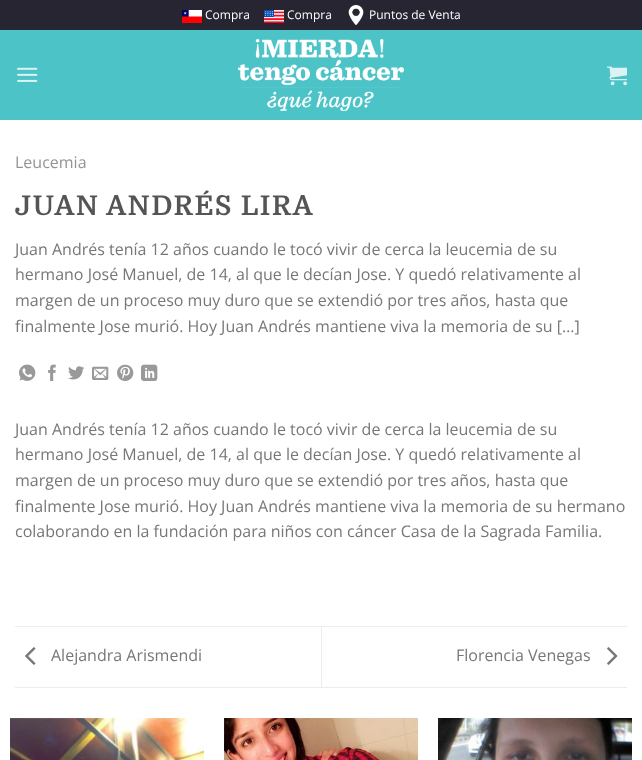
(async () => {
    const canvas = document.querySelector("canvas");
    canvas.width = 642;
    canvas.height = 760;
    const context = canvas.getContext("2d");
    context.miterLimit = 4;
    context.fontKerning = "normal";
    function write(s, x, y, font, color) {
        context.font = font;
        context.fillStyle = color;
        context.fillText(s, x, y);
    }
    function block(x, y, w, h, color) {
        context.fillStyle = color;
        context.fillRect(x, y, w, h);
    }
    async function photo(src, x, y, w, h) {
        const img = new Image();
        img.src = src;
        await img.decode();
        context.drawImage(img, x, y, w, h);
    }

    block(0, 0, 642, 760, "rgb(255, 255, 255)");
    block(0, 0, 642, 30, "rgb(38, 37, 49)");
    await photo("media/1.png", 182, 10, 20, 13);
    write("Compra", 205, 19, "12px Open Sans", "rgb(255, 255, 255)");
    await photo("media/2.png", 264, 10, 20, 13);
    write("Compra", 287, 19, "12px Open Sans", "rgb(255, 255, 255)");
    await photo("media/3.png", 348, 5, 16, 20);
    write("Puntos de Venta", 369, 19, "12px Open Sans", "rgb(255, 255, 255)");
    block(0, 30, 642, 90, "rgb(76, 195, 199)");
    await photo("media/4.png", 17, 67, 21, 15);
    await photo("media/5.png", 238, 39, 166, 72);
    await photo("media/6.png", 607, 66, 20, 20);
    write("Leucemia", 15, 168, "16px Open Sans", "rgb(148, 148, 148)");
    context.letterSpacing = "1.4px";
    write("JUAN ANDRÉS LIRA", 15, 215, "bold 27.25px Domine", "rgb(85, 85, 85)");
    context.letterSpacing = "0px";
    write("Juan Andrés tenía 12 años cuando le tocó vivir de cerca la leucemia de su", 15, 255, "16px Open Sans", "rgb(119, 119, 119)");
    write("hermano José Manuel, de 14, al que le decían Jose. Y quedó relativamente al", 15, 280, "16px Open Sans", "rgb(119, 119, 119)");
    write("margen de un proceso muy duro que se extendió por tres años, hasta que", 15, 306, "16px Open Sans", "rgb(119, 119, 119)");
    write("finalmente Jose murió. Hoy Juan Andrés mantiene viva la memoria de su […]", 15, 332, "16px Open Sans", "rgb(119, 119, 119)");
    await photo("media/7.png", 19, 364, 17, 17);
    await photo("media/8.png", 48, 364, 8, 17);
    await photo("media/9.png", 68, 366, 16, 14);
    await photo("media/10.png", 92, 366, 17, 14);
    await photo("media/11.png", 117, 364, 17, 17);
    await photo("media/12.png", 141, 364, 17, 17);
    write("Juan Andrés tenía 12 años cuando le tocó vivir de cerca la leucemia de su", 15, 435, "16px Open Sans", "rgb(119, 119, 119)");
    write("hermano José Manuel, de 14, al que le decían Jose. Y quedó relativamente al", 15, 460, "16px Open Sans", "rgb(119, 119, 119)");
    write("margen de un proceso muy duro que se extendió por tres años, hasta que", 15, 486, "16px Open Sans", "rgb(119, 119, 119)");
    write("finalmente Jose murió. Hoy Juan Andrés mantiene viva la memoria de su hermano", 15, 512, "16px Open Sans", "rgb(119, 119, 119)");
    write("colaborando en la fundación para niños con cáncer Casa de la Sagrada Familia.", 15, 537, "16px Open Sans", "rgb(119, 119, 119)");
    block(15, 626, 612, 1, "rgb(236, 236, 236)");
    block(15, 687, 612, 1, "rgb(236, 236, 236)");
    await photo("media/13.png", 25, 647, 11, 18);
    write("Alejandra Arismendi", 51, 661, "16px Open Sans", "rgb(119, 119, 119)");
    block(321, 627, 1, 60, "rgb(236, 236, 236)");
    write("Florencia Venegas", 456, 661, "16px Open Sans", "rgb(119, 119, 119)");
    await photo("media/14.png", 607, 647, 11, 18);
    await photo("media/15.png", 10, 718, 194, 42);
    await photo("media/16.png", 224, 718, 194, 42);
    await photo("media/17.png", 438, 718, 194, 42);
})();
